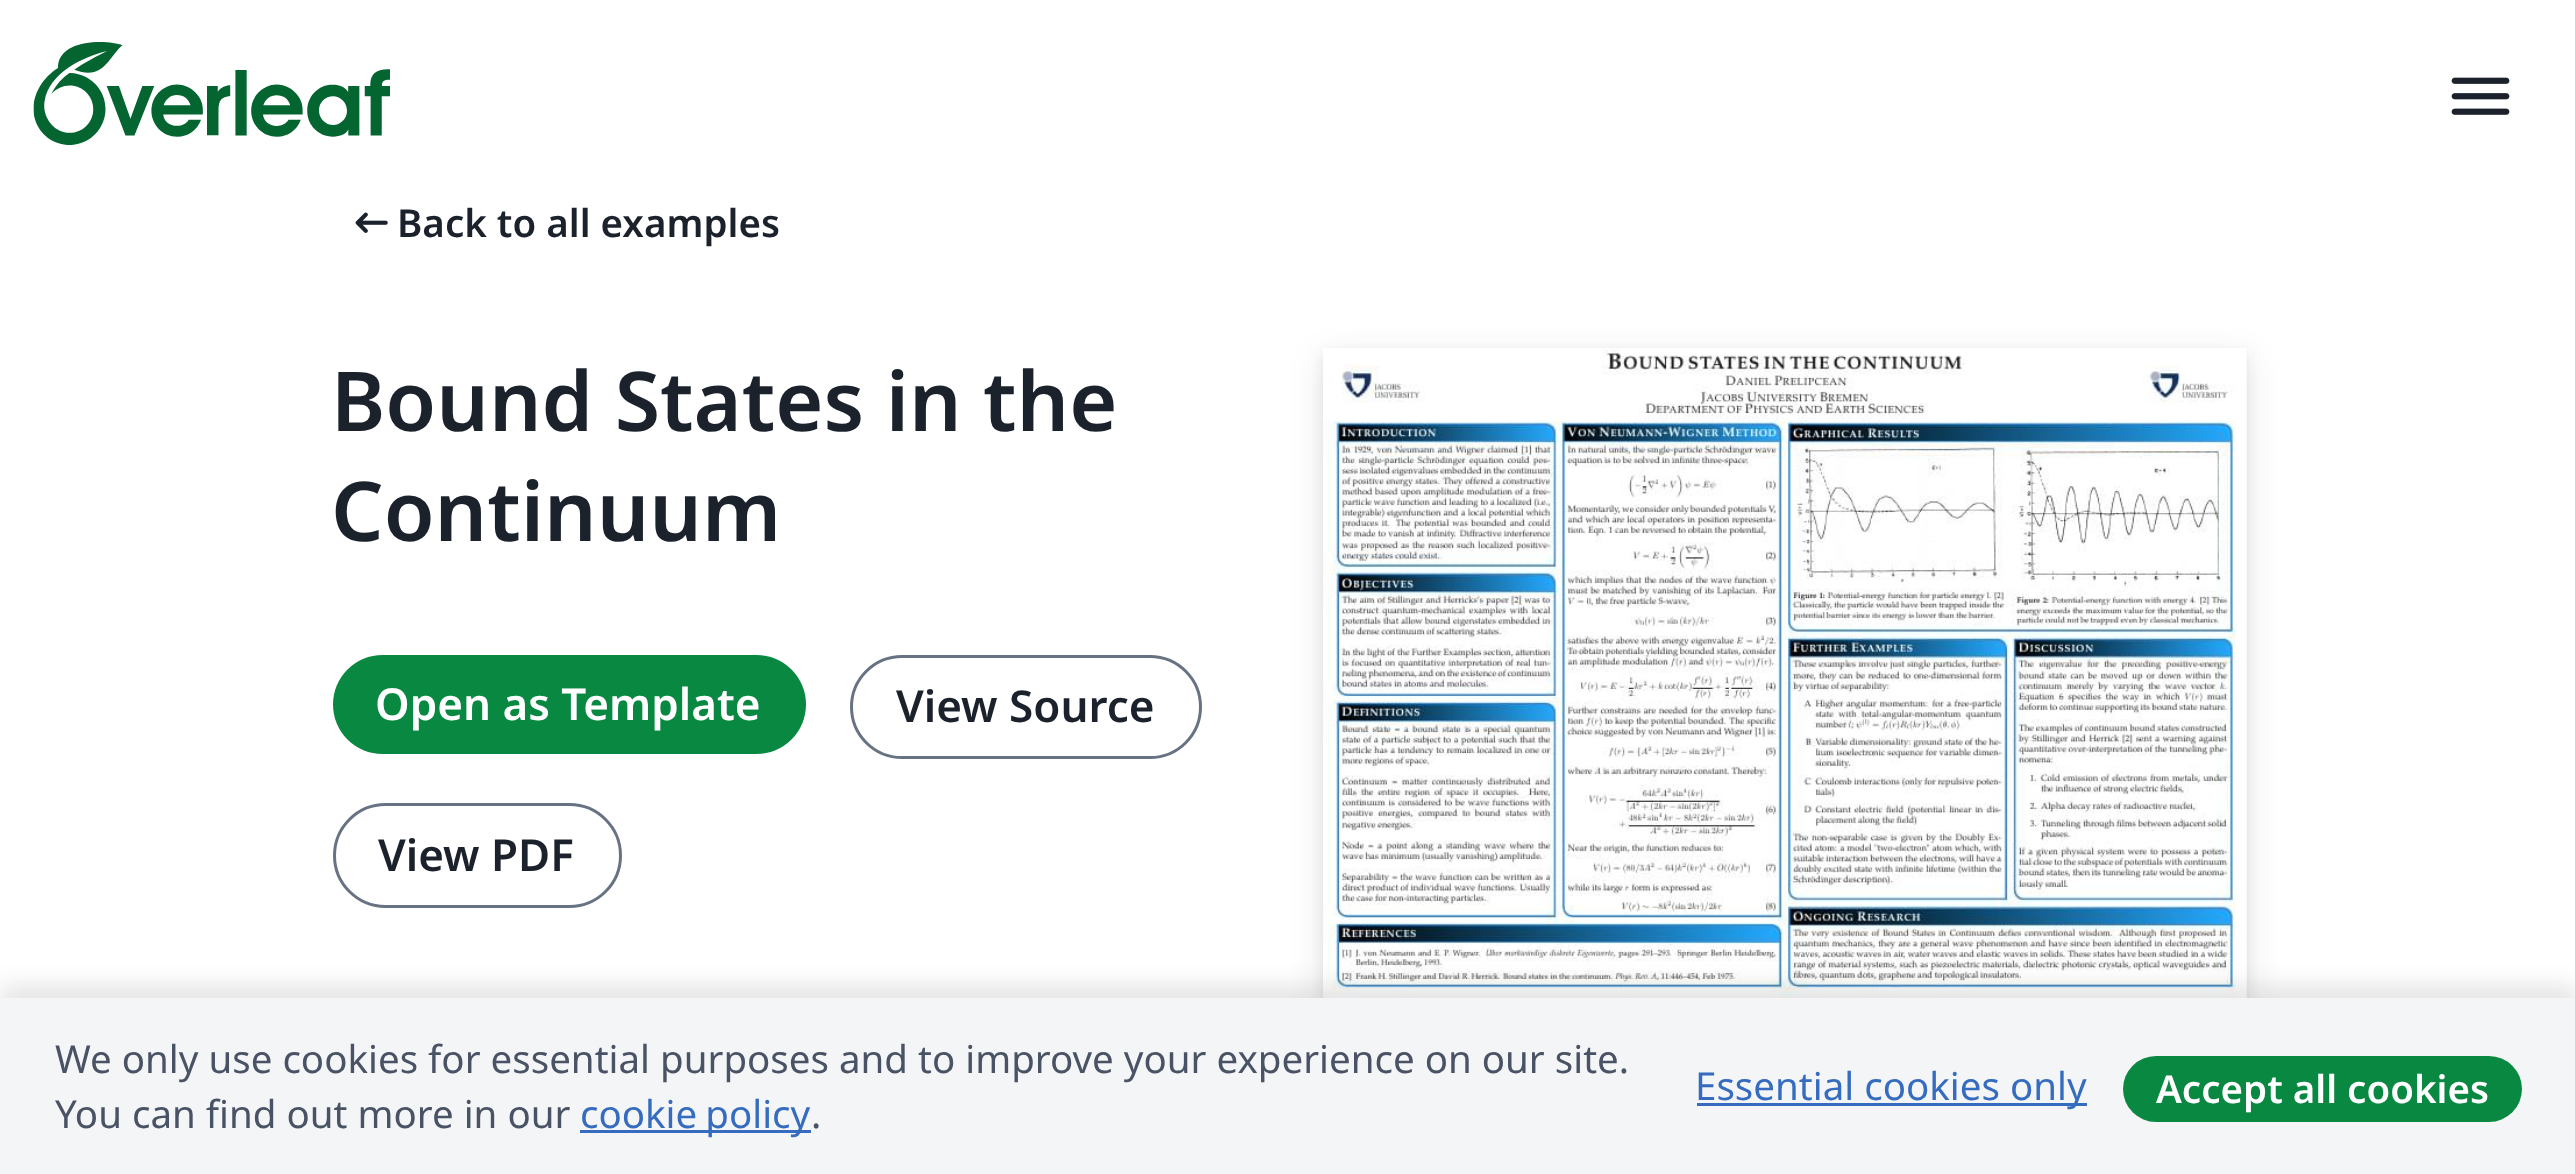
(async () => {
    const canvas = document.querySelector("canvas");
    canvas.width = 2575;
    canvas.height = 1174;
    const context = canvas.getContext("2d");
    context.miterLimit = 4;
    context.fontKerning = "normal";
    function write(s, x, y, font, color) {
        context.font = font;
        context.fillStyle = color;
        context.fillText(s, x, y);
    }
    function block(x, y, w, h, color) {
        context.fillStyle = color;
        context.fillRect(x, y, w, h);
    }
    function card(x, y, w, h, r, color) {
        context.fillStyle = color;
        context.beginPath();
        context.roundRect(x, y, w, h, r);
        context.fill();
    }
    async function photo(src, x, y, w, h) {
        const img = new Image();
        img.src = src;
        await img.decode();
        context.drawImage(img, x, y, w, h);
    }

    block(0, 0, 2575, 1174, "rgb(255, 255, 255)");
    await photo("media/1.png", 33, 42, 357, 103);
    await photo("media/2.png", 2451, 77, 59, 38);
    await photo("media/3.png", 355, 212, 33, 21);
    write("Back to all examples", 397, 237, "600 38.5px Noto Sans", "rgb(27, 34, 44)");
    write("Bound States in the", 331, 431, "600 82.5px Noto Sans", "rgb(27, 34, 44)");
    write("Continuum", 331, 541, "600 82.5px Noto Sans", "rgb(27, 34, 44)");
    card(333, 655, 473, 99, 49.5, "rgb(9, 136, 66)");
    write("Open as Template", 375, 720, "600 44px Noto Sans", "rgb(255, 255, 255)");
    context.beginPath();
    context.roundRect(851.5, 656.5, 349, 101, 50.5);
    context.strokeStyle = "rgb(103, 114, 131)";
    context.lineWidth = 3;
    context.stroke();
    write("View Source", 896, 722, "600 44px Noto Sans", "rgb(27, 34, 44)");
    context.beginPath();
    context.roundRect(334.5, 804.5, 286, 102, 51);
    context.stroke();
    write("View PDF", 378, 871, "600 44px Noto Sans", "rgb(27, 34, 44)");
    context.fillStyle = "rgba(30, 37, 48, 0.08)";
    context.filter = "blur(5.5px)";
    context.beginPath();
    context.rect(1323, 352, 924, 655);
    context.fill();
    context.filter = "none";
    context.fillStyle = "rgba(30, 37, 48, 0.12)";
    context.filter = "blur(16.5px)";
    context.beginPath();
    context.rect(1323, 358, 924, 654);
    context.fill();
    context.filter = "none";
    await photo("media/4.png", 1323, 348, 924, 650);
    context.fillStyle = "rgba(0, 0, 0, 0.1)";
    context.filter = "blur(11px)";
    context.beginPath();
    context.rect(0, 985, 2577, 176);
    context.fill();
    context.filter = "none";
    block(0, 998, 2575, 176, "rgb(244, 245, 246)");
    write("We only use cookies for essential purposes and to improve your experience on our site.", 55, 1073, "38.5px Noto Sans", "rgb(73, 83, 101)");
    write("You can find out more in our", 55, 1128, "38.5px Noto Sans", "rgb(73, 83, 101)");
    block(580, 1130, 231, 3, "rgb(54, 108, 191)");
    context.wordSpacing = "-2px";
    write("cookie policy", 580, 1128, "38.5px Noto Sans", "rgb(54, 108, 191)");
    context.wordSpacing = "0px";
    write(".", 811, 1128, "38.5px Noto Sans", "rgb(73, 83, 101)");
    block(1697, 1103, 390, 3, "rgb(54, 108, 191)");
    write("Essential cookies only", 1695, 1100, "38.5px Noto Sans", "rgb(54, 108, 191)");
    card(2123, 1056, 399, 66, 33, "rgb(9, 136, 66)");
    write("Accept all cookies", 2156, 1103, "600 38.5px Noto Sans", "rgb(255, 255, 255)");
})();
